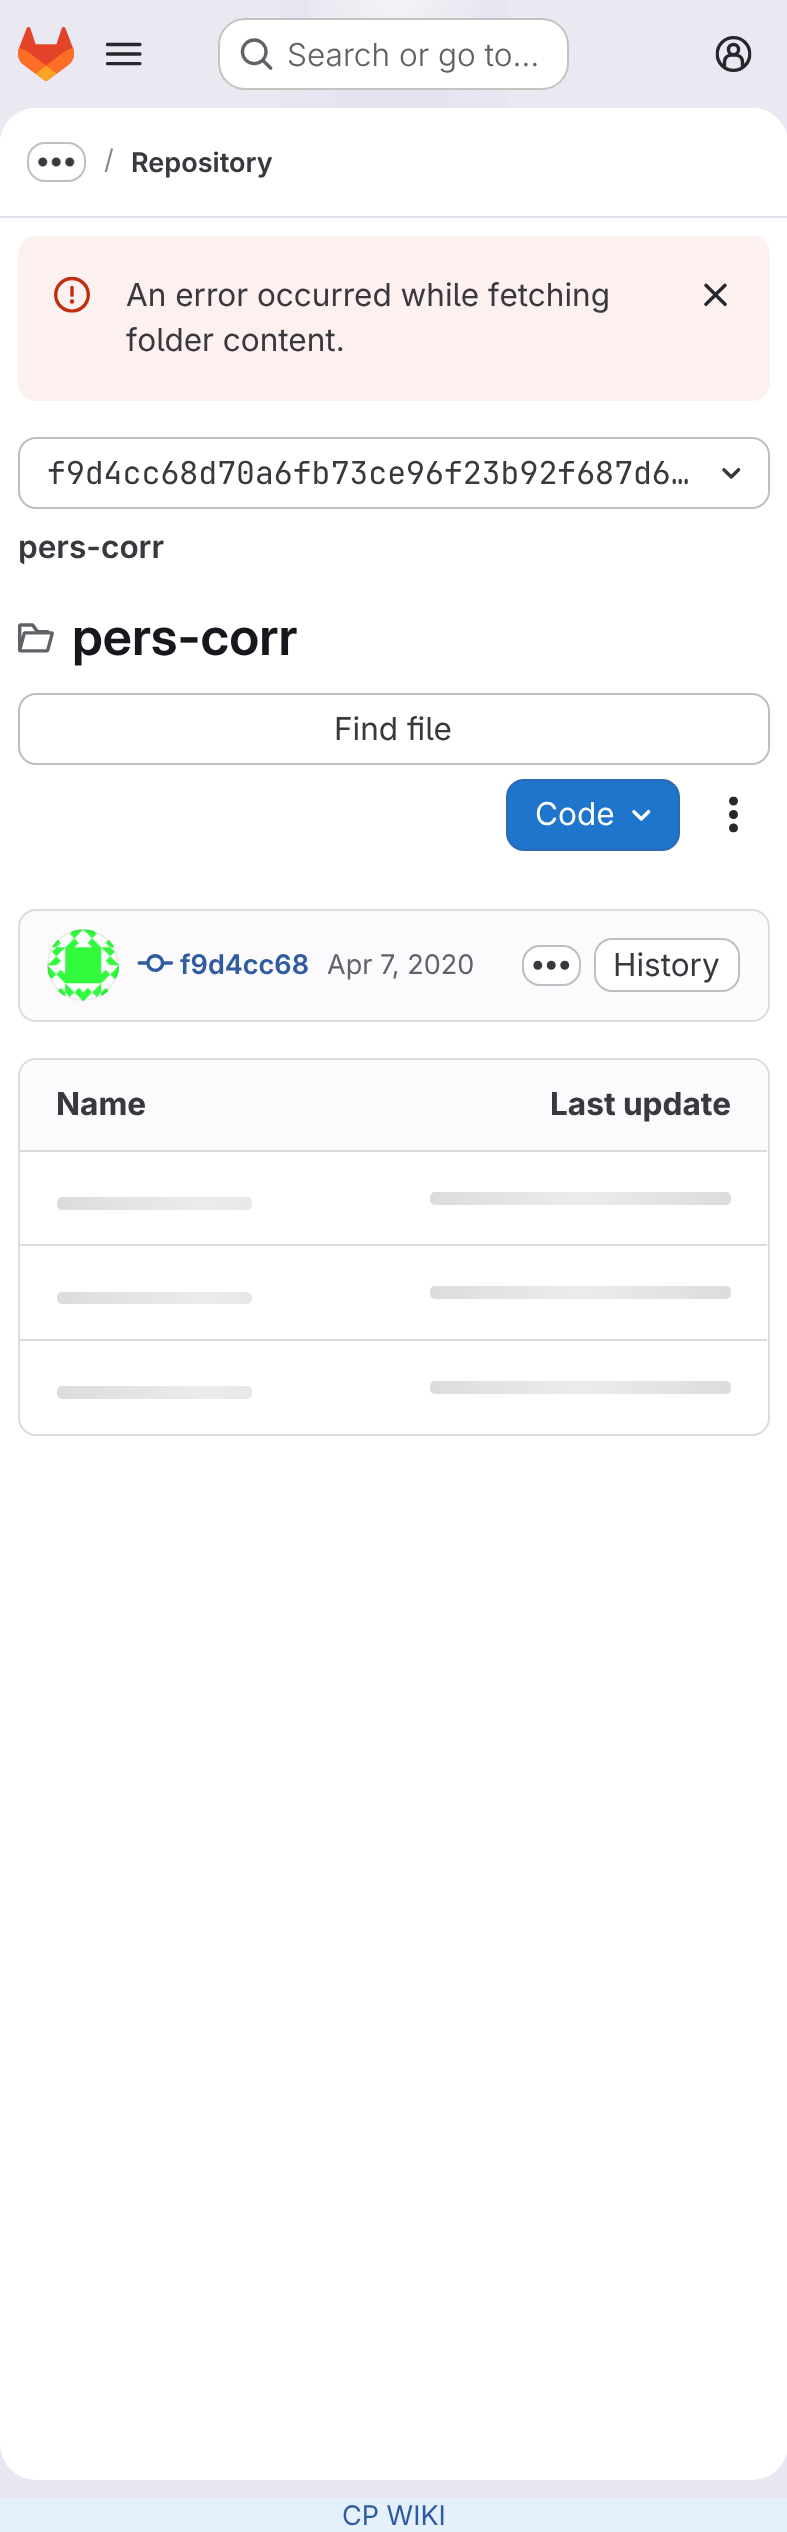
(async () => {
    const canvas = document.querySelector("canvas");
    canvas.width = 787;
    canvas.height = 2532;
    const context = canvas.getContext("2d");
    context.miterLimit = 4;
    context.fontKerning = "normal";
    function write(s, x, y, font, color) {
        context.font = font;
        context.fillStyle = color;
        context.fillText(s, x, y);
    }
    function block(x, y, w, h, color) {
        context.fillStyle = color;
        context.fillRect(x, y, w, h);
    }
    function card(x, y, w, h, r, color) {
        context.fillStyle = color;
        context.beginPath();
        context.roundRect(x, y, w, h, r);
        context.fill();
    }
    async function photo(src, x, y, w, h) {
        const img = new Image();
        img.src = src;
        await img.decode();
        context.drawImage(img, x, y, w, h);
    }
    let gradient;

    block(0, 0, 787, 2532, "rgb(255, 255, 255)");
    gradient = context.createLinearGradient(622, 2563, 165, -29);
    gradient.addColorStop(0, "rgb(232, 230, 240)");
    gradient.addColorStop(0.7, "rgb(234, 233, 242)");
    context.fillStyle = gradient;
    context.fillRect(0, 0, 787, 2498);
    gradient = context.createRadialGradient(394, 0, 0, 394, 0, 394);
    gradient.addColorStop(0, "rgb(228, 226, 237)");
    gradient.addColorStop(0.4, "rgba(228, 226, 237, 0)");
    context.fillStyle = gradient;
    context.beginPath();
    context.rect(280, 0, 228, 108);
    context.save();
    context.clip();
    context.scale(1, 2534 / 394);
    context.fillRect(0, 0, 787, 394);
    context.restore();
    gradient = context.createRadialGradient(394, 0, 0, 394, 0, 394);
    gradient.addColorStop(0, "rgb(228, 226, 236)");
    gradient.addColorStop(0.29, "rgba(228, 226, 236, 0)");
    context.fillStyle = gradient;
    context.beginPath();
    context.rect(340, 12, 108, 96);
    context.save();
    context.clip();
    context.scale(1, 2534 / 394);
    context.fillRect(0, 0, 787, 394);
    context.restore();
    gradient = context.createRadialGradient(394, 0, 0, 394, 0, 2564);
    gradient.addColorStop(0, "rgba(255, 255, 255, 0.6)");
    gradient.addColorStop(0.04, "rgba(255, 255, 255, 0)");
    context.fillStyle = gradient;
    context.fillRect(309, 0, 170, 87);
    await photo("media/1.png", 18, 27, 56, 54);
    await photo("media/2.png", 105, 42, 37, 24);
    card(218, 18, 351, 72, 27, "rgb(255, 255, 255)");
    context.beginPath();
    context.roundRect(219, 19, 349, 70, 26);
    context.strokeStyle = "rgba(5, 5, 6, 0.24)";
    context.lineWidth = 2;
    context.stroke();
    await photo("media/3.png", 240, 38, 33, 32);
    write("Search or go to…", 287, 66, "300 31.5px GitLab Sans", "rgb(98, 97, 104)");
    await photo("media/4.png", 715, 36, 37, 36);
    card(0, 108, 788, 2372, 36, "rgb(255, 255, 255)");
    context.beginPath();
    context.moveTo(36, 108);
    context.lineTo(752, 108);
    context.bezierCurveTo(772, 108, 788, 124, 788, 144);
    context.lineTo(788, 218);
    context.lineTo(0, 218);
    context.lineTo(0, 144);
    context.bezierCurveTo(0, 124, 16, 108, 36, 108);
    context.closePath();
    context.fill();
    block(0, 216, 787, 2, "rgb(225, 223, 236)");
    context.beginPath();
    context.roundRect(28, 143, 57, 38, 17);
    context.strokeStyle = "rgb(191, 191, 195)";
    context.stroke();
    await photo("media/5.png", 38, 157, 37, 10);
    write("/", 104, 169, "27px GitLab Sans", "rgb(137, 136, 141)");
    write("Repository", 131, 172, "600 27px 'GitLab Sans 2'", "rgb(58, 56, 63)");
    card(18, 236, 752, 165, 18, "rgb(252, 241, 239)");
    await photo("media/6.png", 54, 276, 36, 37);
    write("An error occurred while fetching", 126, 306, "31.5px GitLab Sans", "rgb(58, 56, 63)");
    write("folder content.", 126, 351, "31.5px GitLab Sans", "rgb(58, 56, 63)");
    await photo("media/7.png", 704, 283, 23, 24);
    context.beginPath();
    context.roundRect(19, 438, 750, 70, 17);
    context.stroke();
    write("f9d4cc68d70a6fb73ce96f23b92f687d6…", 47, 484, "31.5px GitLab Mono", "rgb(58, 56, 63)");
    await photo("media/8.png", 722, 467, 19, 12);
    context.save();
    context.beginPath();
    context.roundRect(18, 527, 146, 38, 9);
    context.clip();
    write("pers-corr", 18, 558, "600 31.5px 'GitLab Sans 2'", "rgb(58, 56, 63)");
    context.restore();
    await photo("media/9.png", 18, 623, 36, 30);
    write("pers-corr", 72, 655, "600 51.75px GitLab Sans", "rgb(24, 23, 29)");
    context.beginPath();
    context.roundRect(19, 694, 750, 70, 17);
    context.stroke();
    write("Find file", 334, 740, "31.5px GitLab Sans", "rgb(58, 56, 63)");
    context.fillStyle = "rgb(31, 117, 203)";
    context.beginPath();
    context.roundRect(507, 780, 172, 70, 17);
    context.fill();
    context.strokeStyle = "rgb(47, 104, 180)";
    context.stroke();
    write("Code", 535, 825, "31.5px GitLab Sans", "rgb(255, 255, 255)");
    await photo("media/10.png", 632, 809, 19, 12);
    await photo("media/11.png", 729, 796, 9, 37);
    context.fillStyle = "rgb(251, 250, 253)";
    context.beginPath();
    context.roundRect(19, 910, 750, 111, 17);
    context.fill();
    context.strokeStyle = "rgb(220, 220, 222)";
    context.stroke();
    await photo("media/12.png", 47, 929, 73, 73);
    context.beginPath();
    context.arc(83, 965, 35, 0, Math.PI * 2);
    context.strokeStyle = "rgba(5, 5, 6, 0.08)";
    context.stroke();
    await photo("media/13.png", 137, 954, 37, 18);
    write("f9d4cc68", 180, 974, "600 27px 'GitLab Sans 2'", "rgb(47, 92, 160)");
    write("Apr 7, 2020", 327, 974, "27px GitLab Sans", "rgb(98, 97, 104)");
    context.fillStyle = "rgb(255, 255, 255)";
    context.beginPath();
    context.roundRect(523, 946, 57, 39, 17);
    context.fill();
    context.strokeStyle = "rgb(191, 191, 195)";
    context.stroke();
    await photo("media/14.png", 533, 960, 37, 10);
    context.beginPath();
    context.roundRect(595, 939, 144, 52, 17);
    context.fill();
    context.stroke();
    write("History", 613, 976, "31.5px GitLab Sans", "rgb(58, 56, 63)");
    context.beginPath();
    context.roundRect(19, 1059, 750, 376, 17);
    context.strokeStyle = "rgb(220, 220, 222)";
    context.stroke();
    context.fillStyle = "rgb(251, 250, 253)";
    context.beginPath();
    context.roundRect(20, 1060, 374, 90, [16, 0, 0, 0]);
    context.fill();
    write("Name", 56, 1115, "bold 31.5px GitLab Sans", "rgb(58, 56, 63)");
    context.fillStyle = "rgb(251, 250, 253)";
    context.beginPath();
    context.roundRect(394, 1060, 373, 90, [0, 16, 0, 0]);
    context.fill();
    write("Last update", 550, 1115, "bold 31.5px GitLab Sans", "rgb(58, 56, 63)");
    block(20, 1150, 747, 2, "rgb(220, 220, 222)");
    gradient = context.createLinearGradient(430, 1192, 731, 1192);
    gradient.addColorStop(0, "rgb(220, 220, 222)");
    gradient.addColorStop(0.5, "rgb(236, 236, 239)");
    gradient.addColorStop(1, "rgb(220, 220, 222)");
    context.fillStyle = gradient;
    context.beginPath();
    context.roundRect(430, 1192, 301, 13, 5);
    context.fill();
    gradient = context.createLinearGradient(57, 1197, 357, 1197);
    gradient.addColorStop(0, "rgb(220, 220, 222)");
    gradient.addColorStop(0.5, "rgb(236, 236, 239)");
    gradient.addColorStop(1, "rgb(220, 220, 222)");
    context.fillStyle = gradient;
    context.beginPath();
    context.roundRect(57, 1197, 195, 13, 5);
    context.fill();
    block(20, 1244, 747, 2, "rgb(220, 220, 222)");
    gradient = context.createLinearGradient(430, 1286, 731, 1286);
    gradient.addColorStop(0, "rgb(220, 220, 222)");
    gradient.addColorStop(0.5, "rgb(236, 236, 239)");
    gradient.addColorStop(1, "rgb(220, 220, 222)");
    context.fillStyle = gradient;
    context.beginPath();
    context.roundRect(430, 1286, 301, 13, 5);
    context.fill();
    gradient = context.createLinearGradient(57, 1292, 357, 1292);
    gradient.addColorStop(0, "rgb(220, 220, 222)");
    gradient.addColorStop(0.5, "rgb(236, 236, 239)");
    gradient.addColorStop(1, "rgb(220, 220, 222)");
    context.fillStyle = gradient;
    context.beginPath();
    context.roundRect(57, 1292, 195, 12, 5);
    context.fill();
    block(20, 1339, 747, 2, "rgb(220, 220, 222)");
    gradient = context.createLinearGradient(430, 1381, 731, 1381);
    gradient.addColorStop(0, "rgb(220, 220, 222)");
    gradient.addColorStop(0.5, "rgb(236, 236, 239)");
    gradient.addColorStop(1, "rgb(220, 220, 222)");
    context.fillStyle = gradient;
    context.beginPath();
    context.roundRect(430, 1381, 301, 13, 5);
    context.fill();
    gradient = context.createLinearGradient(57, 1386, 357, 1386);
    gradient.addColorStop(0, "rgb(220, 220, 222)");
    gradient.addColorStop(0.5, "rgb(236, 236, 239)");
    gradient.addColorStop(1, "rgb(220, 220, 222)");
    context.fillStyle = gradient;
    context.beginPath();
    context.roundRect(57, 1386, 195, 13, 5);
    context.fill();
    block(0, 2498, 787, 34, "rgb(228, 240, 251)");
    write("CP WIKI", 342, 2525, "27px GitLab Sans", "rgb(47, 92, 160)");
})();
